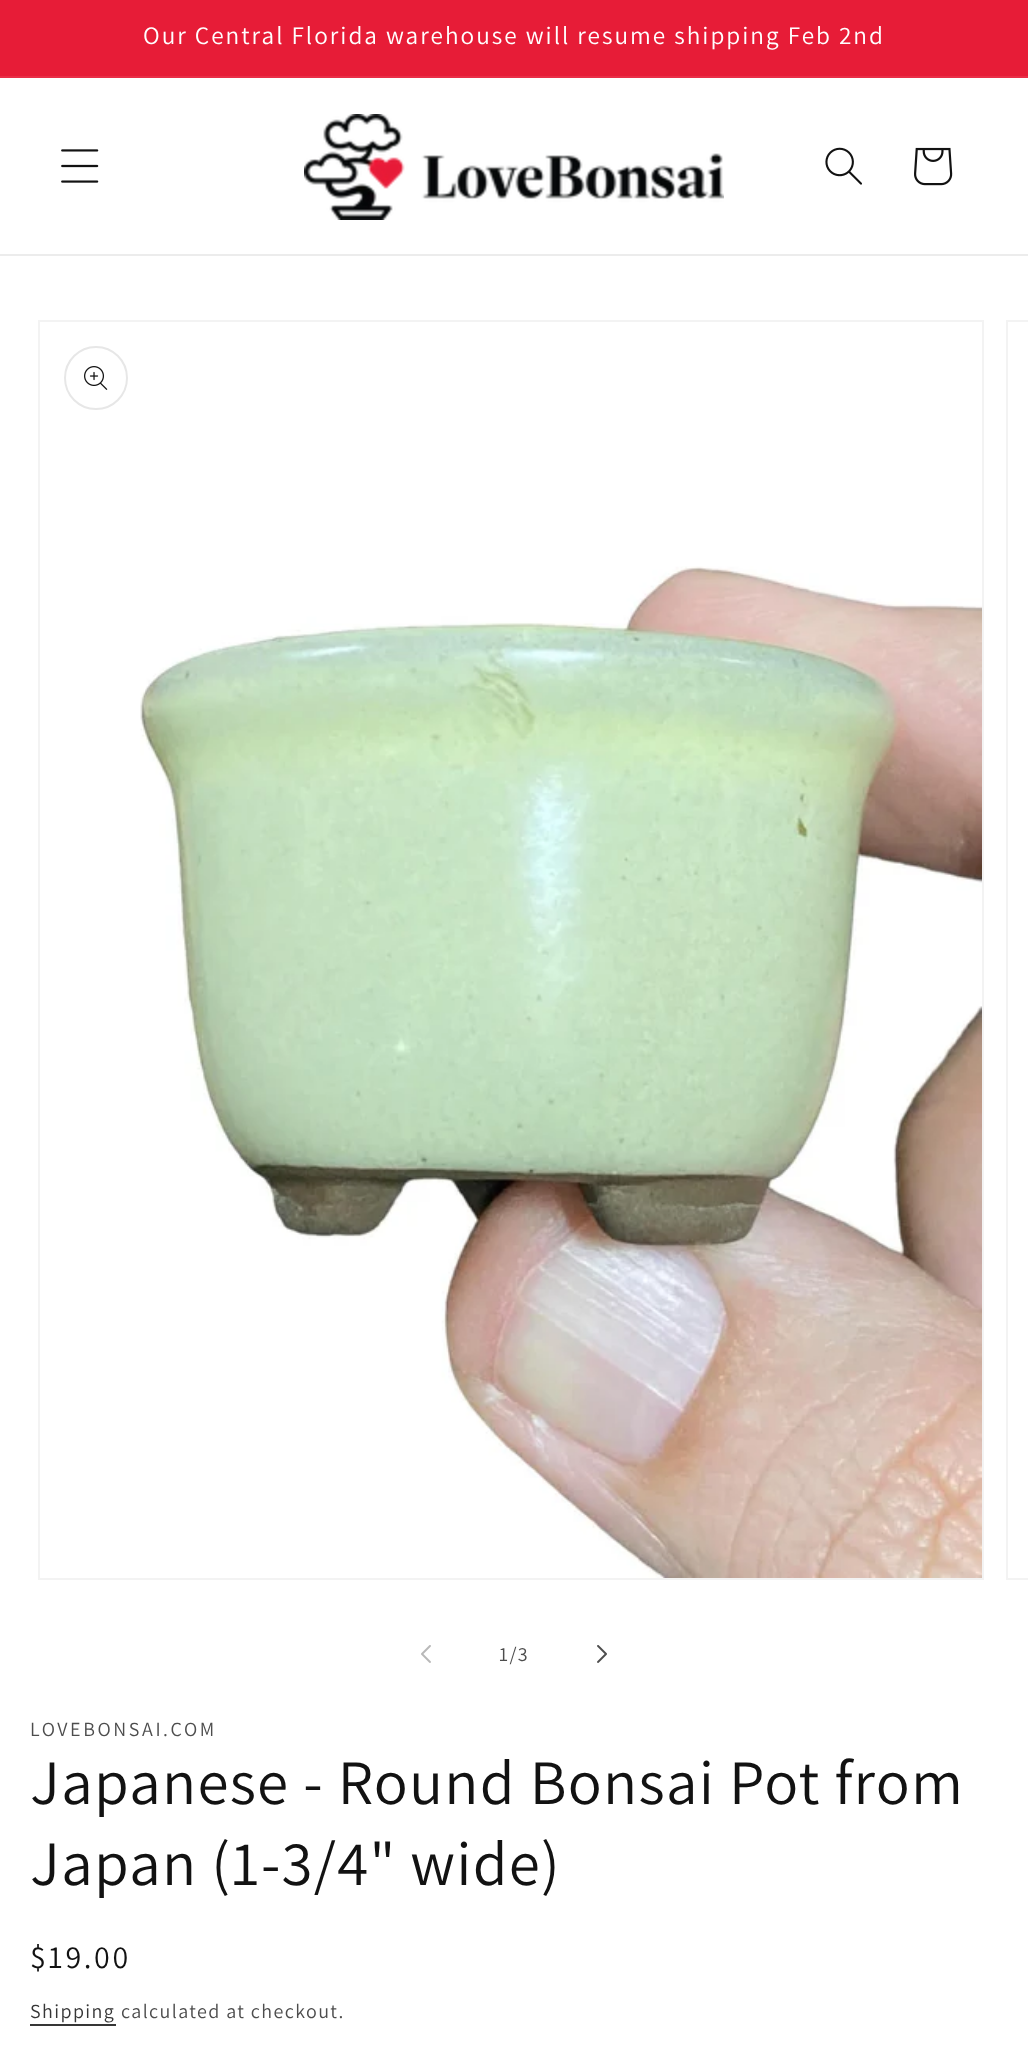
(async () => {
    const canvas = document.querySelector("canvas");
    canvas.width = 1028;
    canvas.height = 2056;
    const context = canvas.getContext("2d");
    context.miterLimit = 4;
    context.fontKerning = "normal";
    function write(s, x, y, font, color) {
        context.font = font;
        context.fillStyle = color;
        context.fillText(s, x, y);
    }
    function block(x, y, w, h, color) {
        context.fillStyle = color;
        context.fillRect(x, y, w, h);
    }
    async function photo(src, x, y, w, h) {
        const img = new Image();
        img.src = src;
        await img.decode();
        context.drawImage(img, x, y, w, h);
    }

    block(0, 0, 1028, 2056, "rgb(255, 255, 255)");
    block(0, 0, 1028, 76, "rgb(231, 28, 55)");
    block(0, 76, 1028, 2, "rgb(233, 46, 71)");
    context.letterSpacing = "2px";
    write("Our Central Florida warehouse will resume shipping Feb 2nd", 143, 44, "25.2px Assistant", "rgb(255, 255, 255)");
    block(0, 254, 1028, 2, "rgb(236, 236, 236)");
    await photo("media/1.png", 61, 149, 38, 34);
    await photo("media/2.png", 304, 114, 420, 106);
    await photo("media/3.png", 825, 147, 37, 38);
    await photo("media/4.png", 914, 147, 39, 39);
    context.strokeStyle = "rgb(243, 243, 243)";
    context.lineWidth = 2;
    context.strokeRect(39, 321, 944, 1258);
    context.beginPath();
    context.arc(96, 378, 31, 0, Math.PI * 2);
    context.strokeStyle = "rgb(231, 231, 231)";
    context.stroke();
    await photo("media/5.png", 84, 366, 24, 24);
    await photo("media/6.png", 140, 566, 842, 1012);
    context.strokeStyle = "rgb(243, 243, 243)";
    context.strokeRect(1007, 321, 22, 1258);
    await photo("media/7.png", 421, 1645, 10, 18);
    context.letterSpacing = "1.4px";
    write("1/3", 499, 1661, "20px Assistant", "rgb(77, 77, 77)");
    await photo("media/8.png", 597, 1645, 10, 18);
    context.letterSpacing = "2.6px";
    write("LOVEBONSAI.COM", 30, 1736, "20px Assistant", "rgb(77, 77, 77)");
    context.letterSpacing = "1.25px";
    write("Japanese - Round Bonsai Pot from", 30, 1804, "63px Assistant", "rgb(18, 18, 18)");
    write("Japan (1-3/4\" wide)", 30, 1885, "63px Assistant", "rgb(18, 18, 18)");
    context.letterSpacing = "2.6px";
    write("$19.00", 30, 1968, "32px Assistant", "rgb(18, 18, 18)");
    context.letterSpacing = "1.4px";
    write("Shipping", 30, 2018, "20px Assistant", "rgb(54, 54, 54)");
    block(30, 2024, 86, 2, "rgb(54, 54, 54)");
    write("calculated at checkout.", 121, 2018, "20px Assistant", "rgb(77, 77, 77)");
})();
